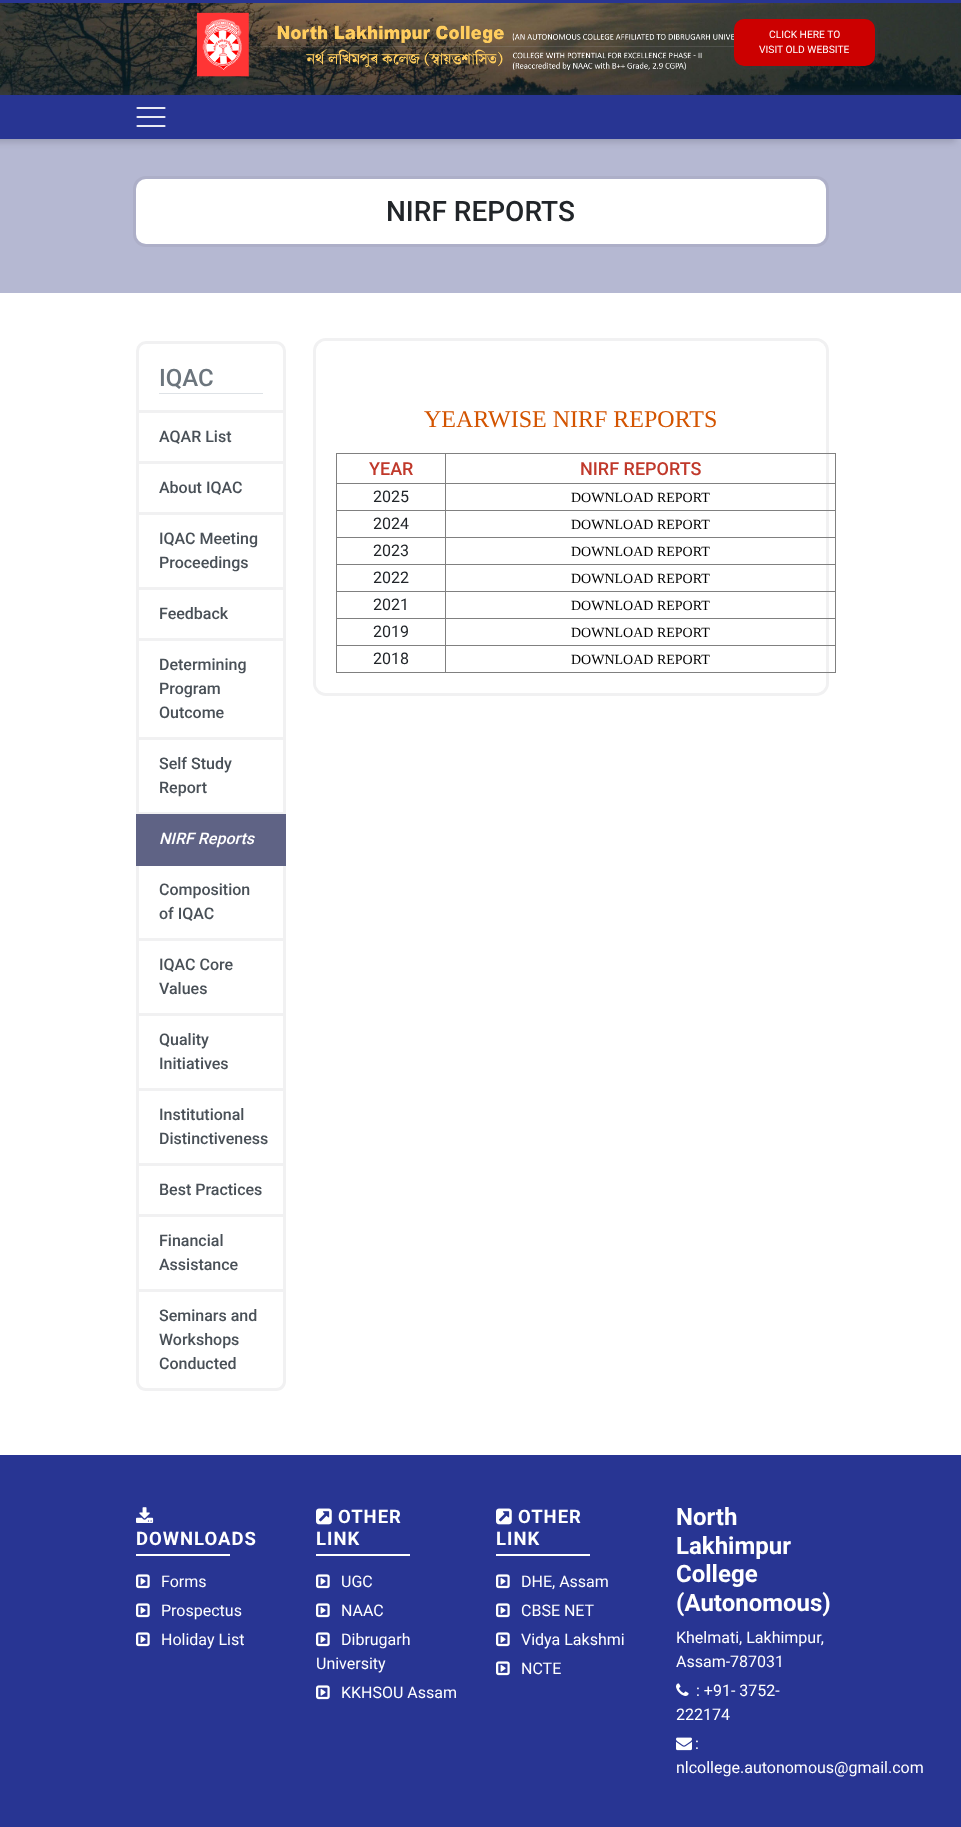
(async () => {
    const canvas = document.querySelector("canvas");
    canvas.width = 961;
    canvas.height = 1827;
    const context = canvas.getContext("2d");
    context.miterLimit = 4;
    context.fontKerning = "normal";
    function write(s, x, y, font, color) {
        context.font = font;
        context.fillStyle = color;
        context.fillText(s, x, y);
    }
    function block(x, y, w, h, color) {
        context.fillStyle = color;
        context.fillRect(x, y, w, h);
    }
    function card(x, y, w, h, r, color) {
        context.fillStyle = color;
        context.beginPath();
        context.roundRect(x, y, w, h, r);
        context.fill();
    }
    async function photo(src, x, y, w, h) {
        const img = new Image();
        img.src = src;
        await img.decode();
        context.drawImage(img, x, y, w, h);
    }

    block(0, 0, 961, 1827, "rgb(255, 255, 255)");
    await photo("media/1.png", 0, 3, 961, 92);
    block(0, 0, 961, 3, "rgb(40, 53, 147)");
    await photo("media/2.png", 162, 12, 572, 65);
    context.beginPath();
    context.roundRect(732.5, 17.5, 144, 50, 11.5);
    context.strokeStyle = "rgba(75, 75, 90, 0.08)";
    context.lineWidth = 3;
    context.stroke();
    card(734, 19, 141, 47, 10, "rgb(204, 0, 0)");
    write("CLICK HERE TO", 769, 38, "10.25px Roboto", "rgb(255, 255, 255)");
    write("VISIT OLD WEBSITE", 759, 53, "10.25px Roboto", "rgb(255, 255, 255)");
    block(0, 139, 961, 154, "rgb(181, 184, 210)");
    context.fillStyle = "rgba(75, 75, 90, 0.25)";
    context.filter = "blur(3px)";
    context.beginPath();
    context.rect(-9, 92, 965, 50);
    context.fill();
    context.filter = "none";
    block(0, 95, 961, 44, "rgb(40, 53, 147)");
    context.beginPath();
    context.moveTo(137.5, 108);
    context.lineTo(164.5, 108);
    context.moveTo(137.5, 117);
    context.lineTo(164.5, 117);
    context.moveTo(137.5, 126);
    context.lineTo(164.5, 126);
    context.strokeStyle = "rgb(234, 235, 244)";
    context.lineWidth = 2.2;
    context.lineCap = "round";
    context.stroke();
    context.beginPath();
    context.roundRect(134.5, 177.5, 693, 68, 11.5);
    context.strokeStyle = "rgb(173, 175, 200)";
    context.lineWidth = 3;
    context.stroke();
    card(136, 179, 690, 65, 10, "rgb(255, 255, 255)");
    write("NIRF REPORTS", 386, 221, "500 28px Roboto", "rgb(33, 37, 41)");
    context.beginPath();
    context.roundRect(137.5, 342.5, 147, 69, [8.5, 8.5, 0, 0]);
    context.strokeStyle = "rgb(241, 241, 242)";
    context.stroke();
    block(159, 393, 104, 1, "rgb(222, 226, 230)");
    write("IQAC", 159, 386, "500 24px Roboto", "rgb(108, 117, 125)");
    block(283, 413, 3, 402, "rgb(241, 241, 242)");
    block(136, 461, 150, 3, "rgb(241, 241, 242)");
    block(136, 413, 3, 51, "rgb(241, 241, 242)");
    write("AQAR List", 159, 442, "500 16px Roboto", "rgb(73, 80, 87)");
    block(136, 512, 150, 3, "rgb(241, 241, 242)");
    block(136, 464, 3, 51, "rgb(241, 241, 242)");
    write("About IQAC", 159, 493, "500 16px Roboto", "rgb(73, 80, 87)");
    block(136, 587, 150, 3, "rgb(241, 241, 242)");
    block(136, 515, 3, 75, "rgb(241, 241, 242)");
    write("IQAC Meeting", 159, 544, "500 16px Roboto", "rgb(73, 80, 87)");
    write("Proceedings", 159, 568, "500 16px Roboto", "rgb(73, 80, 87)");
    block(136, 638, 150, 3, "rgb(241, 241, 242)");
    block(136, 590, 3, 51, "rgb(241, 241, 242)");
    write("Feedback", 159, 619, "500 16px Roboto", "rgb(73, 80, 87)");
    block(136, 737, 150, 3, "rgb(241, 241, 242)");
    block(136, 641, 3, 99, "rgb(241, 241, 242)");
    write("Determining", 159, 670, "500 16px Roboto", "rgb(73, 80, 87)");
    write("Program", 159, 694, "500 16px Roboto", "rgb(73, 80, 87)");
    write("Outcome", 159, 718, "500 16px Roboto", "rgb(73, 80, 87)");
    block(136, 812, 150, 2, "rgb(241, 241, 242)");
    block(136, 740, 3, 75, "rgb(241, 241, 242)");
    write("Self Study", 159, 769, "500 16px Roboto", "rgb(73, 80, 87)");
    write("Report", 159, 793, "500 16px Roboto", "rgb(73, 80, 87)");
    block(139, 815, 144, 48, "rgb(95, 99, 133)");
    block(136, 814, 150, 1, "rgb(95, 99, 133)");
    block(283, 814, 3, 52, "rgb(95, 99, 133)");
    block(136, 863, 150, 3, "rgb(95, 99, 133)");
    block(136, 814, 3, 52, "rgb(95, 99, 133)");
    write("NIRF Reports", 159, 844, "italic 500 16px Roboto", "rgb(255, 255, 255)");
    block(283, 866, 3, 426, "rgb(241, 241, 242)");
    block(136, 938, 150, 3, "rgb(241, 241, 242)");
    block(136, 866, 3, 75, "rgb(241, 241, 242)");
    write("Composition", 159, 895, "500 16px Roboto", "rgb(73, 80, 87)");
    write("of IQAC", 159, 919, "500 16px Roboto", "rgb(73, 80, 87)");
    block(136, 1013, 150, 3, "rgb(241, 241, 242)");
    block(136, 941, 3, 75, "rgb(241, 241, 242)");
    write("IQAC Core", 159, 970, "500 16px Roboto", "rgb(73, 80, 87)");
    write("Values", 159, 994, "500 16px Roboto", "rgb(73, 80, 87)");
    block(136, 1088, 150, 3, "rgb(241, 241, 242)");
    block(136, 1016, 3, 75, "rgb(241, 241, 242)");
    write("Quality", 159, 1045, "500 16px Roboto", "rgb(73, 80, 87)");
    write("Initiatives", 159, 1069, "500 16px Roboto", "rgb(73, 80, 87)");
    block(136, 1163, 150, 3, "rgb(241, 241, 242)");
    block(136, 1091, 3, 75, "rgb(241, 241, 242)");
    write("Institutional", 159, 1120, "500 16px Roboto", "rgb(73, 80, 87)");
    write("Distinctiveness", 159, 1144, "500 16px Roboto", "rgb(73, 80, 87)");
    block(136, 1214, 150, 3, "rgb(241, 241, 242)");
    block(136, 1166, 3, 51, "rgb(241, 241, 242)");
    write("Best Practices", 159, 1195, "500 16px Roboto", "rgb(73, 80, 87)");
    block(136, 1289, 150, 3, "rgb(241, 241, 242)");
    block(136, 1217, 3, 75, "rgb(241, 241, 242)");
    write("Financial", 159, 1246, "500 16px Roboto", "rgb(73, 80, 87)");
    write("Assistance", 159, 1270, "500 16px Roboto", "rgb(73, 80, 87)");
    context.fillStyle = "rgb(241, 241, 242)";
    context.beginPath();
    context.moveTo(136, 1292);
    context.lineTo(286, 1292);
    context.lineTo(286, 1381);
    context.bezierCurveTo(286, 1387, 282, 1391, 276, 1391);
    context.lineTo(146, 1391);
    context.bezierCurveTo(140, 1391, 136, 1387, 136, 1381);
    context.closePath();
    context.moveTo(139, 1292);
    context.lineTo(283, 1292);
    context.lineTo(283, 1381);
    context.bezierCurveTo(283, 1385, 280, 1388, 276, 1388);
    context.lineTo(146, 1388);
    context.bezierCurveTo(142, 1388, 139, 1385, 139, 1381);
    context.closePath();
    context.fill("evenodd");
    write("Seminars and", 159, 1321, "500 16px Roboto", "rgb(73, 80, 87)");
    write("Workshops", 159, 1345, "500 16px Roboto", "rgb(73, 80, 87)");
    write("Conducted", 159, 1369, "500 16px Roboto", "rgb(73, 80, 87)");
    context.beginPath();
    context.roundRect(314.5, 339.5, 513, 355, 11.5);
    context.stroke();
    card(316, 341, 510, 352, 10, "rgb(255, 255, 255)");
    write("YEARWISE NIRF REPORTS", 424, 427, "24px Liberation Serif", "rgb(211, 84, 0)");
    block(336, 453, 500, 1, "rgb(128, 128, 128)");
    block(835, 453, 1, 220, "rgb(128, 128, 128)");
    block(336, 672, 500, 1, "rgb(128, 128, 128)");
    block(336, 453, 1, 220, "rgb(128, 128, 128)");
    write("YEAR", 369, 475, "500 18px Roboto", "rgb(192, 57, 43)");
    block(445, 483, 391, 1, "rgb(128, 128, 128)");
    block(445, 510, 391, 1, "rgb(128, 128, 128)");
    block(445, 537, 391, 1, "rgb(128, 128, 128)");
    block(445, 564, 391, 1, "rgb(128, 128, 128)");
    block(445, 591, 391, 1, "rgb(128, 128, 128)");
    block(445, 618, 391, 1, "rgb(128, 128, 128)");
    block(445, 645, 391, 1, "rgb(128, 128, 128)");
    block(445, 645, 1, 28, "rgb(128, 128, 128)");
    block(336, 645, 110, 1, "rgb(128, 128, 128)");
    block(445, 618, 1, 28, "rgb(128, 128, 128)");
    block(336, 618, 110, 1, "rgb(128, 128, 128)");
    block(445, 591, 1, 28, "rgb(128, 128, 128)");
    block(336, 591, 110, 1, "rgb(128, 128, 128)");
    block(445, 564, 1, 28, "rgb(128, 128, 128)");
    block(336, 564, 110, 1, "rgb(128, 128, 128)");
    block(445, 537, 1, 28, "rgb(128, 128, 128)");
    block(336, 537, 110, 1, "rgb(128, 128, 128)");
    block(445, 510, 1, 28, "rgb(128, 128, 128)");
    block(336, 510, 110, 1, "rgb(128, 128, 128)");
    block(445, 483, 1, 28, "rgb(128, 128, 128)");
    block(336, 483, 110, 1, "rgb(128, 128, 128)");
    block(445, 453, 1, 31, "rgb(128, 128, 128)");
    write("NIRF REPORTS", 580, 475, "500 18px Roboto", "rgb(192, 57, 43)");
    write("2025", 373, 502, "16px Roboto", "rgb(33, 37, 41)");
    write("DOWNLOAD REPORT", 571, 502, "14px Liberation Serif", "rgb(0, 0, 0)");
    write("2024", 373, 529, "16px Roboto", "rgb(33, 37, 41)");
    write("DOWNLOAD REPORT", 571, 529, "14px Liberation Serif", "rgb(0, 0, 0)");
    write("2023", 373, 556, "16px Roboto", "rgb(33, 37, 41)");
    write("DOWNLOAD REPORT", 571, 556, "14px Liberation Serif", "rgb(0, 0, 0)");
    write("2022", 373, 583, "16px Roboto", "rgb(33, 37, 41)");
    write("DOWNLOAD REPORT", 571, 583, "14px Liberation Serif", "rgb(0, 0, 0)");
    write("2021", 373, 610, "16px Roboto", "rgb(33, 37, 41)");
    write("DOWNLOAD REPORT", 571, 610, "14px Liberation Serif", "rgb(0, 0, 0)");
    write("2019", 373, 637, "16px Roboto", "rgb(33, 37, 41)");
    write("DOWNLOAD REPORT", 571, 637, "14px Liberation Serif", "rgb(0, 0, 0)");
    write("2018", 373, 664, "16px Roboto", "rgb(33, 37, 41)");
    write("DOWNLOAD REPORT", 571, 664, "14px Liberation Serif", "rgb(0, 0, 0)");
    block(0, 1455, 961, 372, "rgb(40, 53, 147)");
    block(136, 1554, 94, 2, "rgb(255, 255, 255)");
    await photo("media/3.png", 136, 1507, 18, 16);
    context.letterSpacing = "1px";
    write("DOWNLOADS", 136, 1545, "bold 18.5px Roboto", "rgb(255, 255, 255)");
    await photo("media/4.png", 136, 1574, 14, 15);
    context.letterSpacing = "0px";
    write("Forms", 161, 1587, "16px Roboto", "rgb(255, 255, 255)");
    await photo("media/4.png", 136, 1603, 14, 15);
    write("Prospectus", 161, 1616, "16px Roboto", "rgb(255, 255, 255)");
    await photo("media/4.png", 136, 1632, 14, 15);
    write("Holiday List", 161, 1645, "16px Roboto", "rgb(255, 255, 255)");
    block(316, 1554, 94, 2, "rgb(255, 255, 255)");
    await photo("media/5.png", 316, 1508, 16, 17);
    context.letterSpacing = "1px";
    write("OTHER", 338, 1523, "bold 18.5px Roboto", "rgb(255, 255, 255)");
    write("LINK", 316, 1545, "bold 18.5px Roboto", "rgb(255, 255, 255)");
    await photo("media/4.png", 316, 1574, 14, 15);
    context.letterSpacing = "0px";
    write("UGC", 341, 1587, "16px Roboto", "rgb(255, 255, 255)");
    await photo("media/4.png", 316, 1603, 14, 15);
    write("NAAC", 341, 1616, "16px Roboto", "rgb(255, 255, 255)");
    await photo("media/4.png", 316, 1632, 14, 15);
    write("Dibrugarh", 341, 1645, "16px Roboto", "rgb(255, 255, 255)");
    write("University", 316, 1669, "16px Roboto", "rgb(255, 255, 255)");
    await photo("media/4.png", 316, 1685, 14, 15);
    write("KKHSOU Assam", 341, 1698, "16px Roboto", "rgb(255, 255, 255)");
    block(496, 1554, 94, 2, "rgb(255, 255, 255)");
    await photo("media/5.png", 496, 1508, 16, 17);
    context.letterSpacing = "1px";
    write("OTHER", 518, 1523, "bold 18.5px Roboto", "rgb(255, 255, 255)");
    write("LINK", 496, 1545, "bold 18.5px Roboto", "rgb(255, 255, 255)");
    await photo("media/4.png", 496, 1574, 14, 15);
    context.letterSpacing = "0px";
    write("DHE, Assam", 521, 1587, "16px Roboto", "rgb(255, 255, 255)");
    await photo("media/4.png", 496, 1603, 14, 15);
    write("CBSE NET", 521, 1616, "16px Roboto", "rgb(255, 255, 255)");
    await photo("media/4.png", 496, 1632, 14, 15);
    write("Vidya Lakshmi", 521, 1645, "16px Roboto", "rgb(255, 255, 255)");
    await photo("media/4.png", 496, 1661, 14, 15);
    write("NCTE", 521, 1674, "16px Roboto", "rgb(255, 255, 255)");
    write("North", 676, 1525, "bold 24px Roboto", "rgb(255, 255, 255)");
    write("Lakhimpur", 676, 1554, "bold 24px Roboto", "rgb(255, 255, 255)");
    write("College", 676, 1582, "bold 24px Roboto", "rgb(255, 255, 255)");
    write("(Autonomous)", 676, 1611, "bold 24px Roboto", "rgb(255, 255, 255)");
    write("Khelmati, Lakhimpur,", 676, 1643, "16px Roboto", "rgb(255, 255, 255)");
    write("Assam-787031", 676, 1667, "16px Roboto", "rgb(255, 255, 255)");
    await photo("media/6.png", 676, 1683, 13, 13);
    write(": +91- 3752-", 696, 1696, "16px Roboto", "rgb(255, 255, 255)");
    write("222174", 676, 1720, "16px Roboto", "rgb(255, 255, 255)");
    await photo("media/7.png", 676, 1737, 16, 14);
    write(":", 695, 1749, "16px Roboto", "rgb(255, 255, 255)");
    write("nlcollege.autonomous@gmail.com", 676, 1773, "16px Roboto", "rgb(255, 255, 255)");
})();
